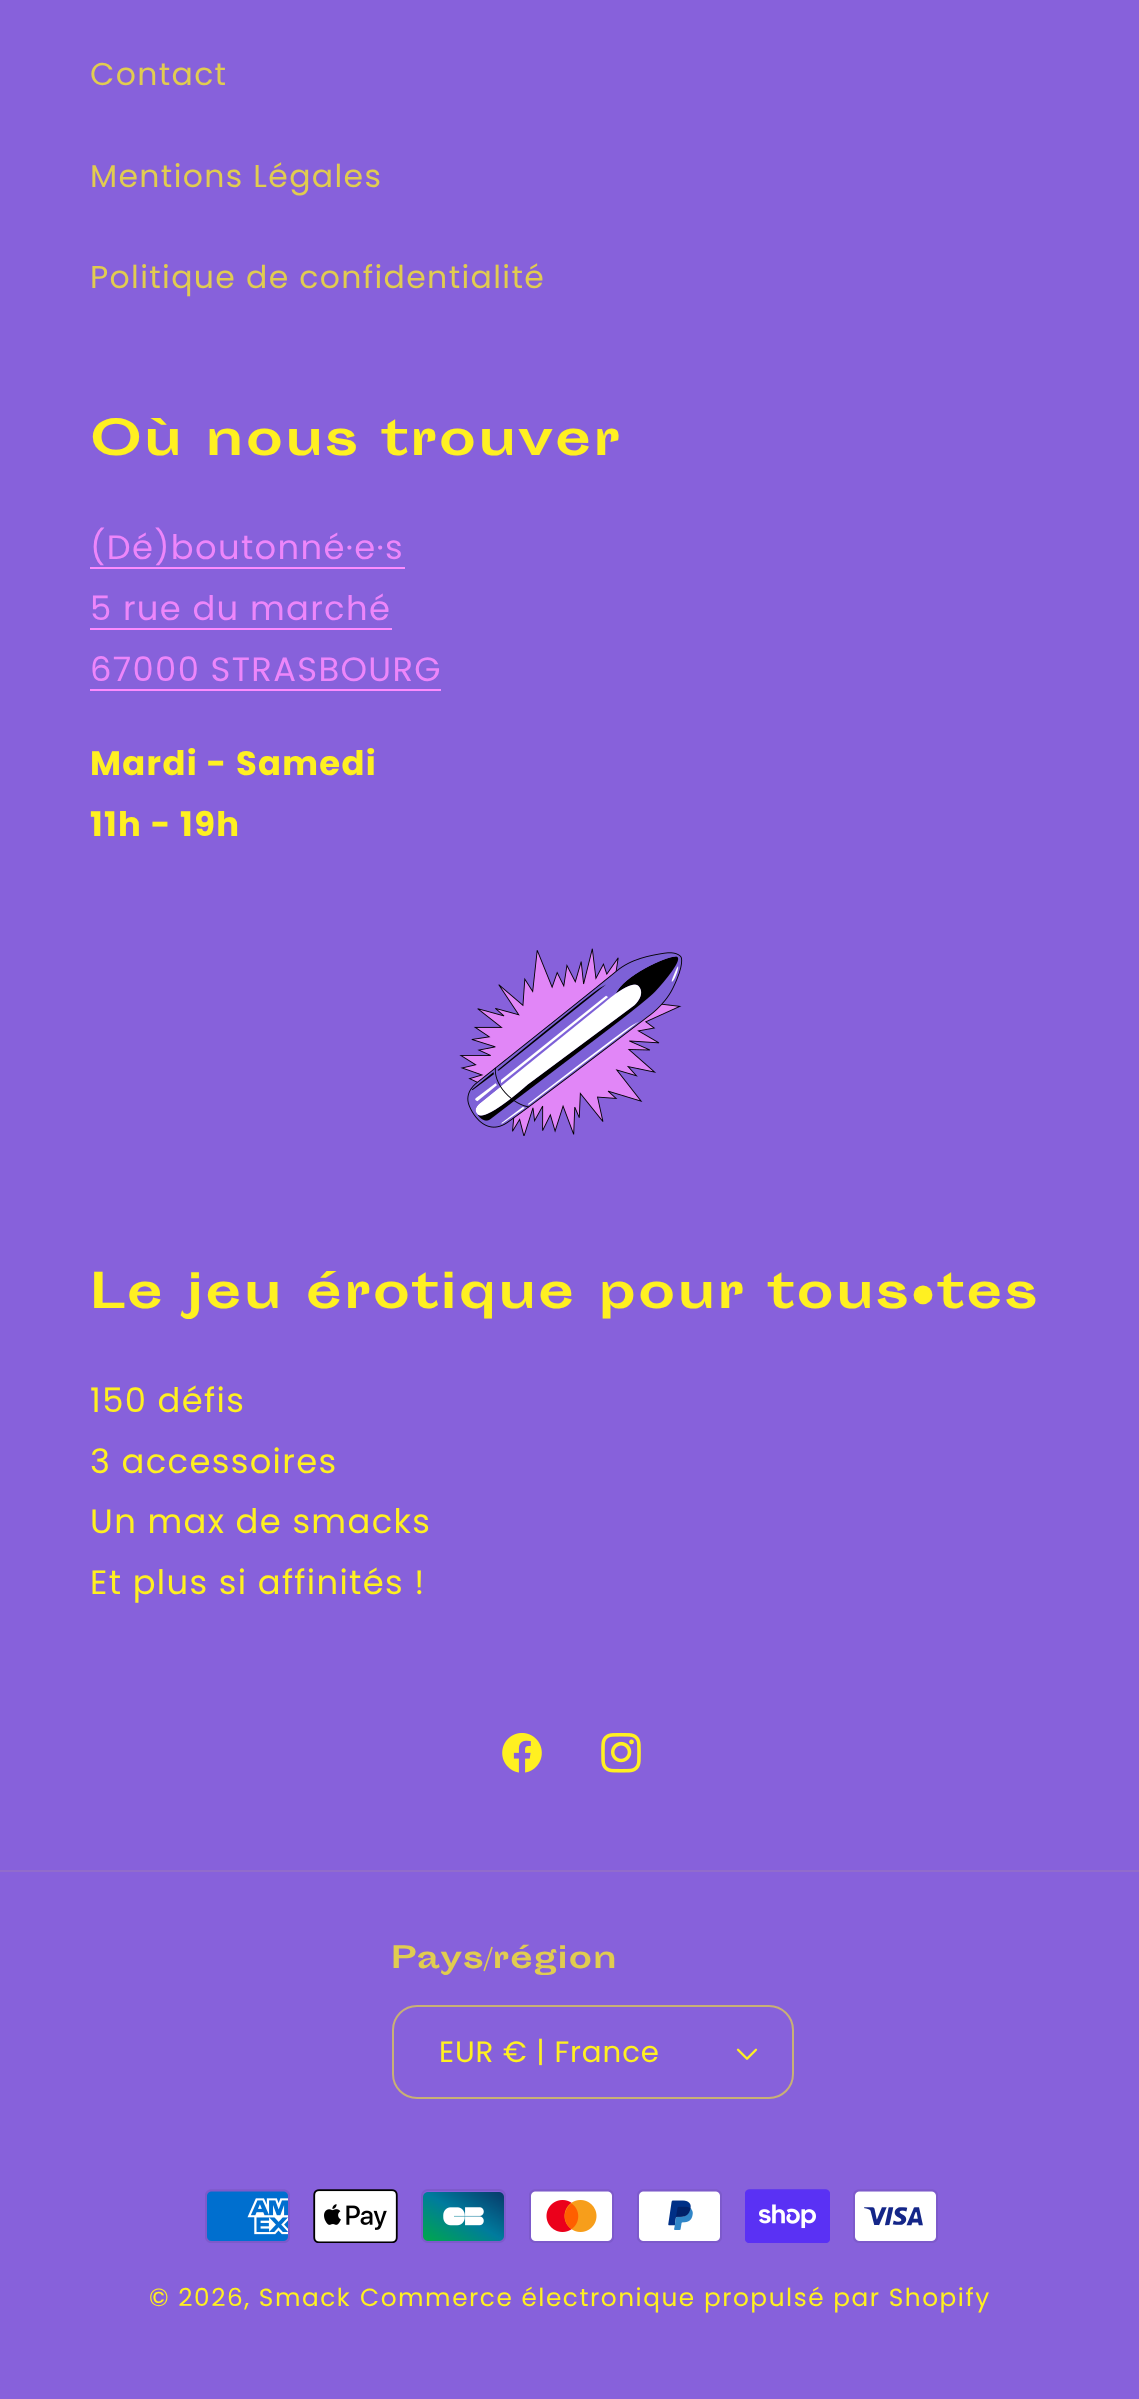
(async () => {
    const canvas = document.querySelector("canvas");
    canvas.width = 1139;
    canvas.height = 2399;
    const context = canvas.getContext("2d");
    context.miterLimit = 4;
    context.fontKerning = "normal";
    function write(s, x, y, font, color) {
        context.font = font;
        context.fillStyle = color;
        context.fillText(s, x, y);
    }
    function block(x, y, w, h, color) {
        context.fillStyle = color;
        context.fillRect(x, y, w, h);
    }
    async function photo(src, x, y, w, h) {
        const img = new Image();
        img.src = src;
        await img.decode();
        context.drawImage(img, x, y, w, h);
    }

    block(0, 0, 1139, 2399, "rgb(135, 97, 219)");
    context.letterSpacing = "1.35px";
    write("Contact", 90, 85, "31.5px Poppins", "rgb(225, 204, 80)");
    write("Mentions Légales", 90, 187, "31.5px Poppins", "rgb(225, 204, 80)");
    write("Politique de confidentialité", 90, 288, "31.5px Poppins", "rgb(225, 204, 80)");
    context.letterSpacing = "1.75px";
    write("Où nous trouver", 90, 455, "bold 46.8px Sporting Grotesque", "rgb(255, 240, 33)");
    context.letterSpacing = "1.35px";
    write("(Dé)boutonné·e·s", 90, 559, "33.75px Poppins", "rgb(237, 134, 250)");
    block(90, 567, 315, 2, "rgb(252, 139, 254)");
    write("5 rue du marché", 90, 620, "33.75px Poppins", "rgb(237, 134, 250)");
    block(90, 628, 302, 2, "rgb(252, 139, 254)");
    write("67000 STRASBOURG", 90, 681, "33.75px Poppins", "rgb(237, 134, 250)");
    block(90, 689, 351, 2, "rgb(252, 139, 254)");
    write("Mardi - Samedi", 90, 775, "bold 33.75px Poppins", "rgb(255, 240, 33)");
    write("11h - 19h", 90, 836, "bold 33.75px Poppins", "rgb(255, 240, 33)");
    await photo("media/1.png", 459, 948, 224, 188);
    context.letterSpacing = "1.75px";
    write("Le jeu érotique pour tous·tes", 90, 1308, "bold 46.8px Sporting Grotesque", "rgb(255, 240, 33)");
    context.letterSpacing = "1.35px";
    write("150 défis", 90, 1412, "33.75px Poppins", "rgb(255, 240, 33)");
    write("3 accessoires", 90, 1473, "33.75px Poppins", "rgb(255, 240, 33)");
    write("Un max de smacks", 90, 1533, "33.75px Poppins", "rgb(255, 240, 33)");
    write("Et plus si affinités !", 90, 1594, "33.75px Poppins", "rgb(255, 240, 33)");
    await photo("media/2.png", 502, 1732, 40, 41);
    await photo("media/3.png", 601, 1732, 40, 41);
    block(0, 1870, 1139, 2, "rgb(145, 108, 204)");
    context.letterSpacing = "0.9px";
    write("Pays/région", 391, 1968, "bold 29.25px Sporting Grotesque", "rgb(225, 204, 80)");
    await photo("media/4.png", 736, 2048, 22, 12);
    context.beginPath();
    context.roundRect(393, 2006, 400, 92, 24);
    context.strokeStyle = "rgb(201, 176, 117)";
    context.lineWidth = 2;
    context.stroke();
    write("EUR € | France", 439, 2062, "29.25px Poppins", "rgb(255, 240, 33)");
    await photo("media/5.png", 205, 2189, 85, 54);
    await photo("media/6.png", 313, 2189, 85, 54);
    await photo("media/7.png", 421, 2189, 85, 54);
    await photo("media/8.png", 529, 2189, 85, 54);
    await photo("media/9.png", 637, 2189, 85, 54);
    await photo("media/10.png", 745, 2189, 85, 54);
    await photo("media/11.png", 853, 2189, 85, 54);
    context.letterSpacing = "1.55px";
    write("© 2026, Smack", 149, 2306, "24.75px Poppins", "rgb(255, 240, 33)");
    write("Commerce électronique propulsé par Shopify", 360, 2306, "24.75px Poppins", "rgb(255, 240, 33)");
})();
